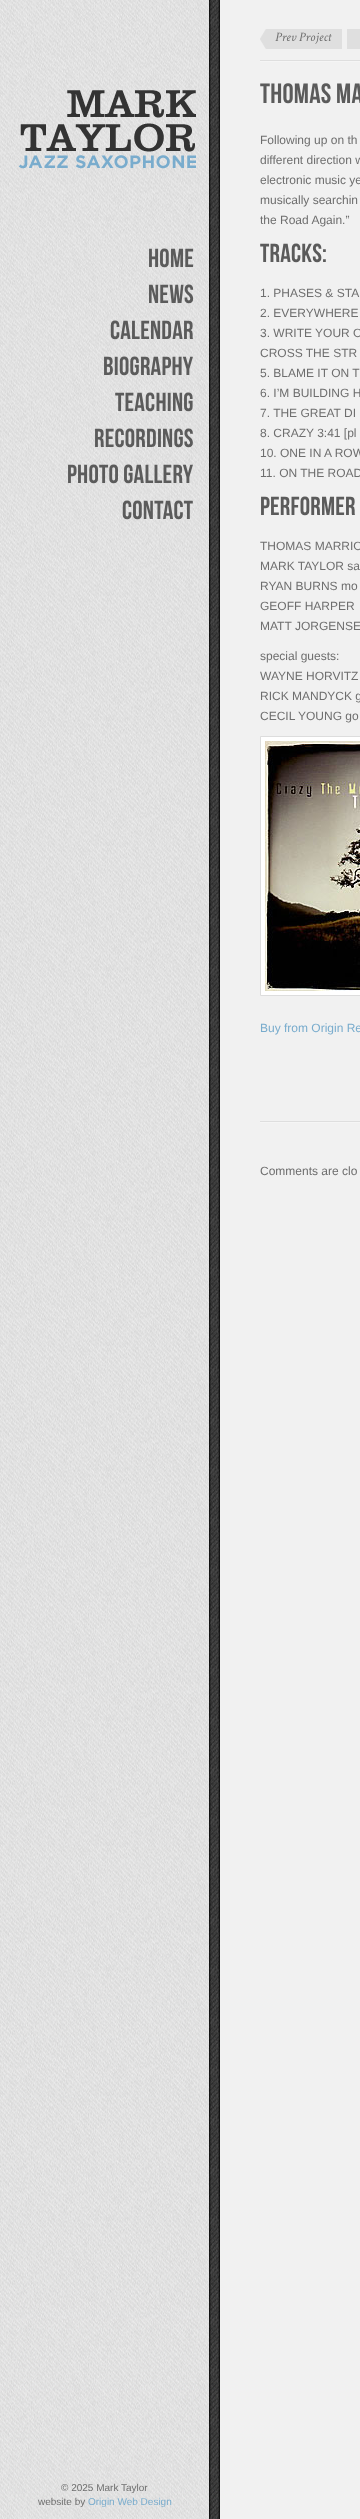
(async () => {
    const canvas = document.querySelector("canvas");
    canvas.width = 360;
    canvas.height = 2519;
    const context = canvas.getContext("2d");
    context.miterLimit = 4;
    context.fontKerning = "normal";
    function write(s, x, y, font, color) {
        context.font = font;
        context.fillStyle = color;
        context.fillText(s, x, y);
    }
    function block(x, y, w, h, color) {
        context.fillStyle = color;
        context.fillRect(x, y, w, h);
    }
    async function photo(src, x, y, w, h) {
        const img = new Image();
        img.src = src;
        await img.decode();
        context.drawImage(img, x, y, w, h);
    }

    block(0, 0, 360, 2519, "rgb(241, 241, 241)");
    await photo("media/1.png", 0, 0, 220, 2519);
    await photo("media/2.png", 18, 90, 178, 79);
    context.letterSpacing = "0.25px";
    write("Home", 148, 267, "26px Bebas Neue", "rgb(91, 91, 91)");
    write("News", 148, 303, "26px Bebas Neue", "rgb(91, 91, 91)");
    write("Calendar", 110, 339, "26px Bebas Neue", "rgb(91, 91, 91)");
    write("Biography", 103, 375, "26px Bebas Neue", "rgb(91, 91, 91)");
    write("Teaching", 115, 411, "26px Bebas Neue", "rgb(91, 91, 91)");
    write("Recordings", 94, 447, "26px Bebas Neue", "rgb(91, 91, 91)");
    write("Photo Gallery", 67, 483, "26px Bebas Neue", "rgb(91, 91, 91)");
    write("Contact", 122, 519, "26px Bebas Neue", "rgb(91, 91, 91)");
    context.letterSpacing = "0px";
    write("© 2025 Mark Taylor", 61, 2491, "10px Liberation Sans", "rgb(110, 110, 110)");
    write("website by", 38, 2505, "10px Liberation Sans", "rgb(110, 110, 110)");
    write("Origin Web Design", 88, 2505, "10px Liberation Sans", "rgb(121, 172, 205)");
    await photo("media/3.png", 260, 60, 100, 2);
    await photo("media/4.png", 260, 29, 82, 20);
    write("Prev Project", 275, 41, "italic 13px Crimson", "rgb(110, 110, 110)");
    block(347, 29, 13, 20, "rgb(223, 223, 223)");
    context.letterSpacing = "0.25px";
    write("Thomas Ma", 260, 103, "28px Bebas Neue", "rgb(91, 91, 91)");
    context.letterSpacing = "0px";
    write("Following up on th", 260, 144, "12px Liberation Sans", "rgb(110, 110, 110)");
    write("different direction w", 260, 164, "12px Liberation Sans", "rgb(110, 110, 110)");
    write("electronic music ye", 260, 184, "12px Liberation Sans", "rgb(110, 110, 110)");
    write("musically searchin", 260, 204, "12px Liberation Sans", "rgb(110, 110, 110)");
    write("the Road Again.”", 260, 224, "12px Liberation Sans", "rgb(110, 110, 110)");
    context.letterSpacing = "0.25px";
    write("TRACKS:", 260, 262, "26px Bebas Neue", "rgb(91, 91, 91)");
    context.letterSpacing = "0px";
    write("1. PHASES & STA", 260, 297, "12px Liberation Sans", "rgb(110, 110, 110)");
    write("2. EVERYWHERE", 260, 317, "12px Liberation Sans", "rgb(110, 110, 110)");
    write("3. WRITE YOUR O", 260, 337, "12px Liberation Sans", "rgb(110, 110, 110)");
    write("CROSS THE STR", 260, 357, "12px Liberation Sans", "rgb(110, 110, 110)");
    write("5. BLAME IT ON T", 260, 377, "12px Liberation Sans", "rgb(110, 110, 110)");
    write("6. I’M BUILDING H", 260, 397, "12px Liberation Sans", "rgb(110, 110, 110)");
    write("7. THE GREAT DI", 260, 417, "12px Liberation Sans", "rgb(110, 110, 110)");
    write("8. CRAZY 3:41 [pl", 260, 437, "12px Liberation Sans", "rgb(110, 110, 110)");
    write("10. ONE IN A ROW", 260, 457, "12px Liberation Sans", "rgb(110, 110, 110)");
    write("11. ON THE ROAD", 260, 477, "12px Liberation Sans", "rgb(110, 110, 110)");
    context.letterSpacing = "0.25px";
    write("PERFORMER", 260, 515, "26px Bebas Neue", "rgb(91, 91, 91)");
    context.letterSpacing = "0px";
    write("THOMAS MARRIO", 260, 550, "12px Liberation Sans", "rgb(110, 110, 110)");
    write("MARK TAYLOR sa", 260, 570, "12px Liberation Sans", "rgb(110, 110, 110)");
    write("RYAN BURNS mo", 260, 590, "12px Liberation Sans", "rgb(110, 110, 110)");
    write("GEOFF HARPER", 260, 610, "12px Liberation Sans", "rgb(110, 110, 110)");
    write("MATT JORGENSE", 260, 630, "12px Liberation Sans", "rgb(110, 110, 110)");
    write("special guests:", 260, 660, "12px Liberation Sans", "rgb(110, 110, 110)");
    write("WAYNE HORVITZ", 260, 680, "12px Liberation Sans", "rgb(110, 110, 110)");
    write("RICK MANDYCK g", 260, 700, "12px Liberation Sans", "rgb(110, 110, 110)");
    write("CECIL YOUNG go", 260, 720, "12px Liberation Sans", "rgb(110, 110, 110)");
    context.fillStyle = "rgb(255, 255, 255)";
    context.beginPath();
    context.rect(260.5, 736.5, 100, 259);
    context.fill();
    context.strokeStyle = "rgb(221, 221, 221)";
    context.stroke();
    await photo("media/5.png", 265, 741, 95, 250);
    write("Buy from Origin Re", 260, 1032, "12px Liberation Sans", "rgb(121, 172, 205)");
    await photo("media/3.png", 260, 1121, 100, 2);
    write("Comments are clo", 260, 1175, "12px Liberation Sans", "rgb(110, 110, 110)");
})();
